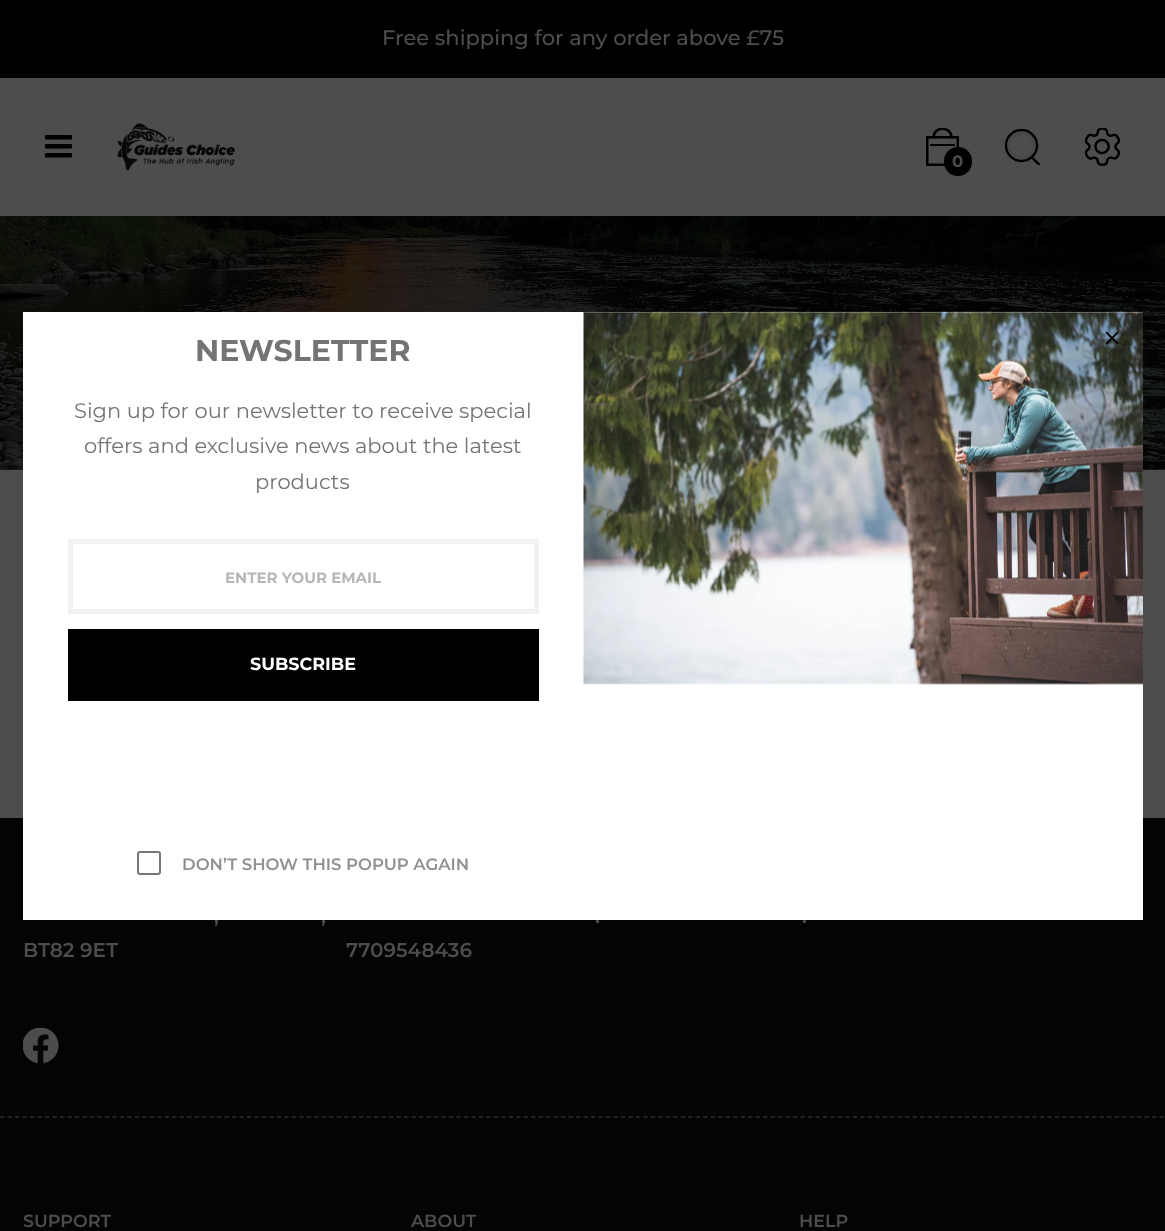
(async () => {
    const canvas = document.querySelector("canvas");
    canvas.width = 1165;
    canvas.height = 1231;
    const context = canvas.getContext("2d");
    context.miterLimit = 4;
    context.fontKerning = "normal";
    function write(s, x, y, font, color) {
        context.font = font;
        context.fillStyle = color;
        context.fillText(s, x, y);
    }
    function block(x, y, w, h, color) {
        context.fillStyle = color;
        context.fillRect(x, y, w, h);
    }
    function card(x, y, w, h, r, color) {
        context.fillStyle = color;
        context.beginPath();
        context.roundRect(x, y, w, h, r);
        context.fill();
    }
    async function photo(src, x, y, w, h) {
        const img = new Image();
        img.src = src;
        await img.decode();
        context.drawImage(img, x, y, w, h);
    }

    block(0, 0, 1165, 1231, "rgb(77, 77, 77)");
    block(0, 469, 1165, 1, "rgb(38, 38, 38)");
    block(0, 0, 1165, 78, "rgb(0, 0, 0)");
    write("Free shipping for any order above £75", 382, 45, "500 21px Montserrat", "rgb(77, 77, 77)");
    await photo("media/1.png", 45, 135, 27, 23);
    await photo("media/2.png", 117, 123, 118, 48);
    context.strokeStyle = "rgb(0, 0, 0)";
    context.lineWidth = 2.5;
    context.strokeRect(927.25, 137.25, 30.5, 27.5);
    context.save();
    context.beginPath();
    context.rect(926, 128, 34, 39);
    context.clip();
    context.beginPath();
    context.moveTo(933.5, 137.5);
    context.bezierCurveTo(933.5, 126, 951.5, 126, 951.5, 137.5);
    context.lineWidth = 2.4;
    context.lineCap = "round";
    context.lineJoin = "round";
    context.stroke();
    context.restore();
    block(930, 144, 25, 2, "rgb(0, 0, 0)");
    card(944, 147, 28, 29, 14, "rgb(0, 0, 0)");
    write("0", 952, 167, "bold 16.5px Montserrat", "rgb(77, 77, 77)");
    context.save();
    context.beginPath();
    context.rect(1005, 129, 35, 36);
    context.clip();
    context.beginPath();
    context.arc(1021.5, 145.5, 15.5, 0, Math.PI * 2);
    context.lineWidth = 2.4;
    context.stroke();
    context.restore();
    context.beginPath();
    context.arc(1021.5, 145.5, 12, 0, Math.PI * 2);
    context.strokeStyle = "rgb(71, 71, 71)";
    context.lineWidth = 1.5;
    context.stroke();
    context.save();
    context.beginPath();
    context.rect(1005, 129, 35, 36);
    context.clip();
    context.beginPath();
    context.moveTo(1031.5, 157);
    context.lineTo(1039.5, 165);
    context.strokeStyle = "rgb(0, 0, 0)";
    context.lineWidth = 2.4;
    context.stroke();
    context.restore();
    await photo("media/3.png", 1085, 128, 36, 38);
    await photo("media/4.png", 0, 216, 1165, 254);
    block(0, 818, 1165, 413, "rgb(4, 4, 4)");
    write(",", 214, 923, "600 20px Montserrat", "rgb(77, 77, 77)");
    write(",", 321, 923, "600 20px Montserrat", "rgb(77, 77, 77)");
    write(".", 595, 923, "600 20px Montserrat", "rgb(77, 77, 77)");
    write(".", 802, 923, "600 20px Montserrat", "rgb(77, 77, 77)");
    block(23, 312, 1120, 608, "rgb(255, 255, 255)");
    await photo("media/5.png", 583, 311, 560, 374);
    write("NEWSLETTER", 195, 361, "bold 30px Montserrat", "rgb(116, 116, 116)");
    write("Sign up for our newsletter to receive special", 74, 418, "21px Montserrat", "rgb(116, 116, 116)");
    write("offers and exclusive news about the latest", 84, 453, "21px Montserrat", "rgb(116, 116, 116)");
    write("products", 255, 489, "21px Montserrat", "rgb(116, 116, 116)");
    context.strokeStyle = "rgb(242, 242, 242)";
    context.lineWidth = 5;
    context.strokeRect(70.5, 541.5, 466, 70);
    write("ENTER YOUR EMAIL", 225, 583, "bold 15px Montserrat", "rgb(183, 183, 183)");
    block(68, 629, 471, 72, "rgb(0, 0, 0)");
    write("SUBSCRIBE", 250, 670, "bold 17.5px Montserrat", "rgb(255, 255, 255)");
    context.beginPath();
    context.roundRect(138, 852, 22, 22, 2);
    context.strokeStyle = "rgb(118, 118, 118)";
    context.lineWidth = 2;
    context.stroke();
    write("DON’T SHOW THIS POPUP AGAIN", 182, 870, "600 16.5px Montserrat", "rgb(144, 144, 144)");
    await photo("media/6.png", 1105, 331, 14, 14);
    context.beginPath();
    context.moveTo(0, 1117);
    context.lineTo(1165.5, 1117);
    context.strokeStyle = "rgb(43, 43, 43)";
    context.lineWidth = 1.5;
    context.setLineDash([4.5, 2.98]);
    context.stroke();
    write("BT82 9ET", 23, 957, "600 20px Montserrat", "rgb(77, 77, 77)");
    write("7709548436", 346, 957, "600 20px Montserrat", "rgb(77, 77, 77)");
    await photo("media/7.png", 23, 1028, 36, 36);
    write("SUPPORT", 23, 1227, "600 17.5px Montserrat", "rgb(77, 77, 77)");
    write("ABOUT", 411, 1227, "600 17.5px Montserrat", "rgb(77, 77, 77)");
    write("HELP", 799, 1227, "600 17.5px Montserrat", "rgb(77, 77, 77)");
})();
